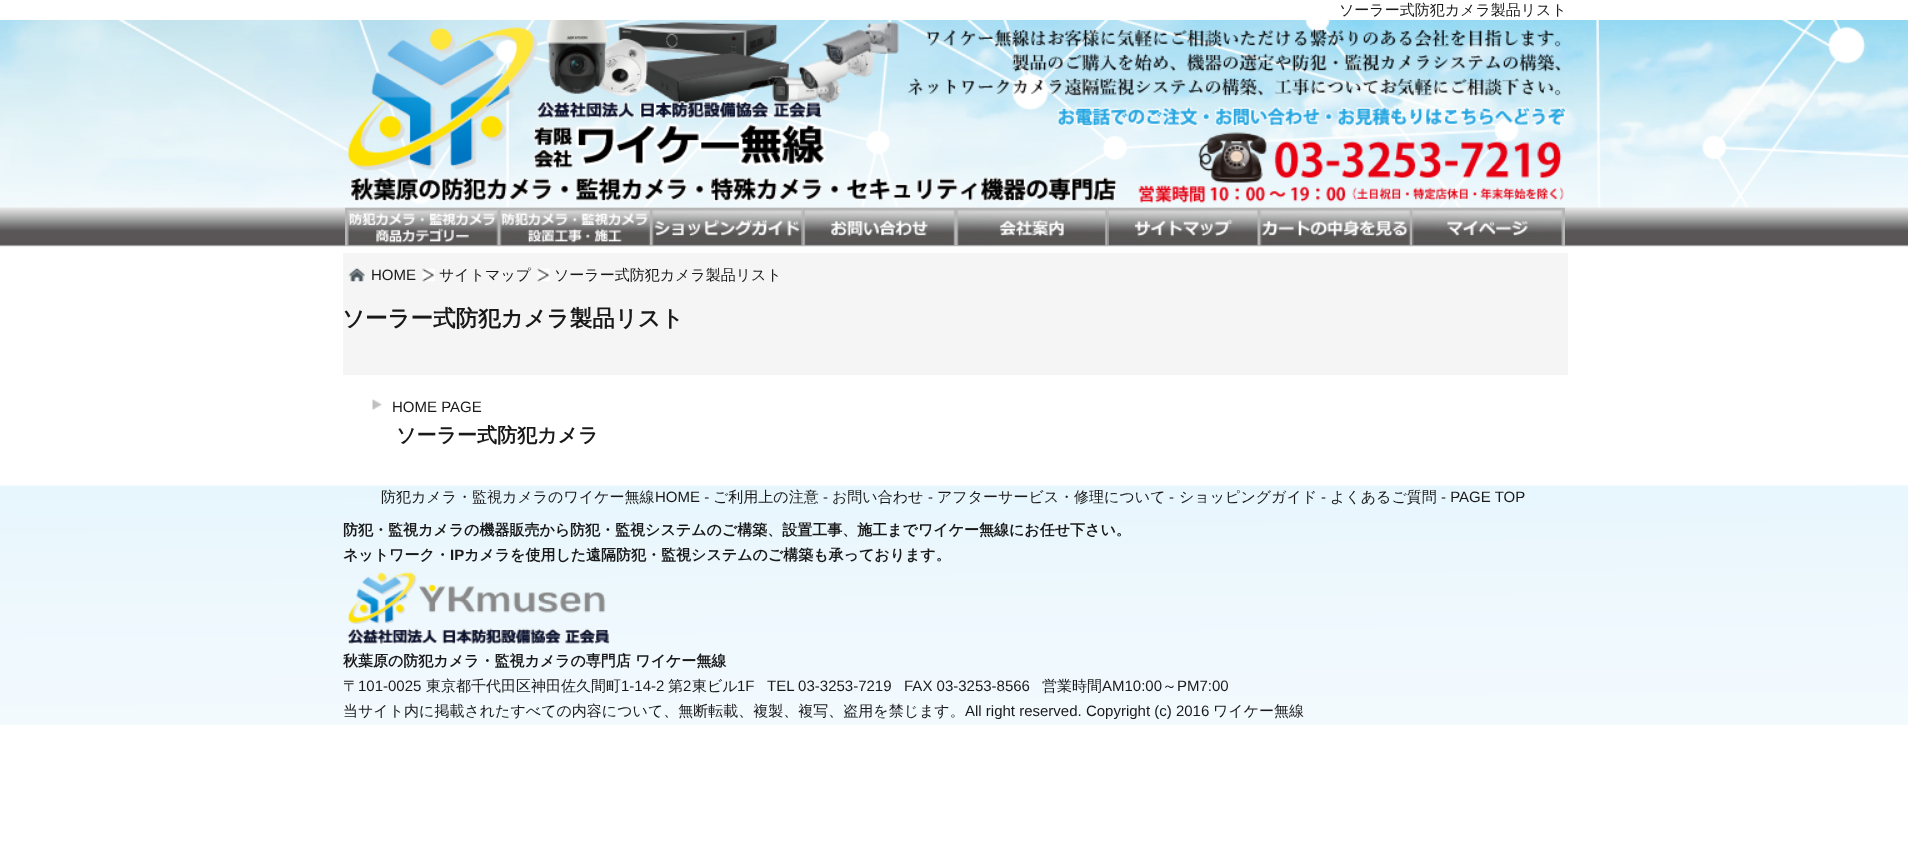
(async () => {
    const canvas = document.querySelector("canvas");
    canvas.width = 1908;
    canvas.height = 843;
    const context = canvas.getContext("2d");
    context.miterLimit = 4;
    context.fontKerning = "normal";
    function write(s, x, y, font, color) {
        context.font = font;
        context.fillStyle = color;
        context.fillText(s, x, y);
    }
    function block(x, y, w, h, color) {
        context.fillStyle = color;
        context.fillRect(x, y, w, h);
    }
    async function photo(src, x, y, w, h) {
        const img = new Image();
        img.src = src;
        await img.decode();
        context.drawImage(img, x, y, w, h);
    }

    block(0, 0, 1908, 843, "rgb(255, 255, 255)");
    write("ソーラー式防犯カメラ製品リスト", 1339, 15, "500 15px WenQuanYi Zen Hei", "rgb(25, 25, 25)");
    await photo("media/1.png", 0, 20, 1908, 188);
    await photo("media/2.png", 347, 20, 1221, 183);
    await photo("media/3.png", 0, 207, 1908, 40);
    await photo("media/4.png", 345, 207, 153, 39);
    await photo("media/5.png", 497, 207, 153, 39);
    await photo("media/6.png", 650, 207, 153, 39);
    await photo("media/7.png", 802, 207, 153, 39);
    await photo("media/8.png", 955, 207, 153, 39);
    await photo("media/9.png", 1107, 207, 153, 39);
    await photo("media/10.png", 1260, 207, 153, 39);
    await photo("media/11.png", 1412, 207, 153, 39);
    block(343, 253, 1225, 122, "rgb(245, 245, 245)");
    await photo("media/12.png", 348, 268, 17, 14);
    write("HOME", 371, 280, "15px Liberation Sans", "rgb(25, 25, 25)");
    await photo("media/13.png", 422, 268, 13, 14);
    write("サイトマップ", 439, 280, "500 15px WenQuanYi Zen Hei", "rgb(25, 25, 25)");
    await photo("media/14.png", 537, 268, 13, 14);
    write("ソーラー式防犯カメラ製品リスト", 554, 280, "500 15px WenQuanYi Zen Hei", "rgb(25, 25, 25)");
    write("ソーラー式防犯カメラ製品リスト", 342, 326, "bold 22.5px WenQuanYi Zen Hei", "rgb(25, 25, 25)");
    await photo("media/15.png", 372, 399, 10, 11);
    write("HOME PAGE", 392, 412, "15px Liberation Sans", "rgb(25, 25, 25)");
    write("ソーラー式防犯カメラ", 396, 442, "bold 20px WenQuanYi Zen Hei", "rgb(25, 25, 25)");
    await photo("media/16.png", 0, 485, 1908, 240);
    write("防犯カメラ・監視カメラのワイケー無線", 381, 502, "500 15px WenQuanYi Zen Hei", "rgb(25, 25, 25)");
    write("HOME -", 655, 502, "15px Liberation Sans", "rgb(25, 25, 25)");
    write("ご利用上の注意", 713, 502, "500 15px WenQuanYi Zen Hei", "rgb(25, 25, 25)");
    write("-", 823, 502, "15px Liberation Sans", "rgb(25, 25, 25)");
    write("お問い合わせ", 832, 502, "500 15px WenQuanYi Zen Hei", "rgb(25, 25, 25)");
    write("-", 928, 502, "15px Liberation Sans", "rgb(25, 25, 25)");
    write("アフターサービス・修理について", 937, 502, "500 15px WenQuanYi Zen Hei", "rgb(25, 25, 25)");
    write("-", 1169, 502, "15px Liberation Sans", "rgb(25, 25, 25)");
    write("ショッピングガイド", 1179, 502, "500 15px WenQuanYi Zen Hei", "rgb(25, 25, 25)");
    write("-", 1321, 502, "15px Liberation Sans", "rgb(25, 25, 25)");
    write("よくあるご質問", 1330, 502, "500 15px WenQuanYi Zen Hei", "rgb(25, 25, 25)");
    write("- PAGE TOP", 1441, 502, "15px Liberation Sans", "rgb(25, 25, 25)");
    write("防犯・監視カメラの機器販売から防犯・監視システムのご構築、設置工事、施工までワイケー無線にお任せ下さい。", 343, 535, "bold 15px WenQuanYi Zen Hei", "rgb(25, 25, 25)");
    write("ネットワーク・", 343, 560, "bold 15px WenQuanYi Zen Hei", "rgb(25, 25, 25)");
    write("IP", 450, 560, "bold 15px Liberation Sans", "rgb(25, 25, 25)");
    write("カメラを使用した遠隔防犯・監視システムのご構築も承っております。", 464, 560, "bold 15px WenQuanYi Zen Hei", "rgb(25, 25, 25)");
    await photo("media/17.png", 347, 572, 263, 73);
    write("秋葉原の防犯カメラ・監視カメラの専門店 ワイケー無線", 343, 666, "bold 15px WenQuanYi Zen Hei", "rgb(25, 25, 25)");
    write("〒", 343, 691, "500 15px WenQuanYi Zen Hei", "rgb(25, 25, 25)");
    write("101-0025", 358, 691, "15px Liberation Sans", "rgb(25, 25, 25)");
    write("東京都千代田区神田佐久間町", 426, 691, "500 15px WenQuanYi Zen Hei", "rgb(25, 25, 25)");
    write("1-14-2", 621, 691, "15px Liberation Sans", "rgb(25, 25, 25)");
    write("第", 668, 691, "500 15px WenQuanYi Zen Hei", "rgb(25, 25, 25)");
    write("2", 683, 691, "15px Liberation Sans", "rgb(25, 25, 25)");
    write("東ビル", 692, 691, "500 15px WenQuanYi Zen Hei", "rgb(25, 25, 25)");
    write("1F", 737, 691, "15px Liberation Sans", "rgb(25, 25, 25)");
    write("TEL 03-3253-7219   FAX 03-3253-8566", 767, 691, "15px Liberation Sans", "rgb(25, 25, 25)");
    write("営業時間", 1042, 691, "500 15px WenQuanYi Zen Hei", "rgb(25, 25, 25)");
    write("AM10:00", 1102, 691, "15px Liberation Sans", "rgb(25, 25, 25)");
    write("～", 1162, 691, "500 15px WenQuanYi Zen Hei", "rgb(25, 25, 25)");
    write("PM7:00", 1177, 691, "15px Liberation Sans", "rgb(25, 25, 25)");
    write("当サイト内に掲載されたすべての内容について、無断転載、複製、複写、盗用を禁じます。", 343, 716, "500 15px WenQuanYi Zen Hei", "rgb(25, 25, 25)");
    write("All right reserved. Copyright (c) 2016", 965, 716, "15px Liberation Sans", "rgb(25, 25, 25)");
    write("ワイケー無線", 1213, 716, "500 15px WenQuanYi Zen Hei", "rgb(25, 25, 25)");
})();
